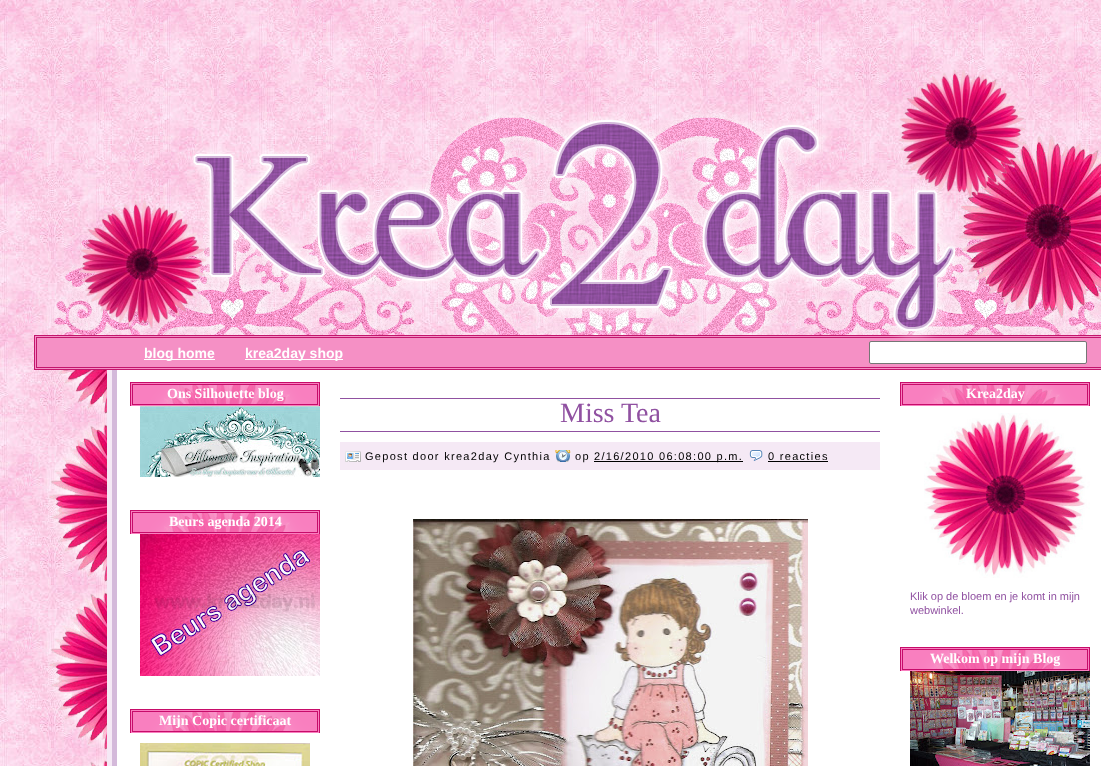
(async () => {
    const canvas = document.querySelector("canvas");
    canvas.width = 1101;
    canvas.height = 766;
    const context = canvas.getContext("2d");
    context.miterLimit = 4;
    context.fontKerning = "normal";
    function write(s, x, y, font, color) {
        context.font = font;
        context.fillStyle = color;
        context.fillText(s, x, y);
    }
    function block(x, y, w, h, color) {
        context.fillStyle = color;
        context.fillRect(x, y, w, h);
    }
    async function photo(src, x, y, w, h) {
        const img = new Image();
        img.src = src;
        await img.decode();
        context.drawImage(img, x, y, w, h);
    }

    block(0, 0, 1101, 766, "rgb(255, 255, 255)");
    await photo("media/1.png", 0, 0, 1101, 766);
    await photo("media/2.png", 34, 69, 1067, 267);
    await photo("media/3.png", 34, 336, 1067, 34);
    block(144, 359, 71, 1, "rgb(255, 255, 255)");
    write("blog home", 144, 358, "bold 14px Liberation Sans", "rgb(255, 255, 255)");
    block(245, 359, 98, 1, "rgb(255, 255, 255)");
    write("krea2day shop", 245, 358, "bold 14px Liberation Sans", "rgb(255, 255, 255)");
    context.beginPath();
    context.roundRect(869.5, 341.5, 217, 22, 1.5);
    context.fill();
    context.strokeStyle = "rgb(118, 118, 118)";
    context.stroke();
    await photo("media/4.png", 45, 370, 1056, 396);
    await photo("media/5.png", 130, 382, 190, 24);
    write("Ons Silhouette blog", 167, 398, "bold 14px Liberation Serif", "rgb(255, 255, 255)");
    await photo("media/6.png", 140, 406, 180, 71);
    await photo("media/5.png", 130, 510, 190, 24);
    write("Beurs agenda 2014", 169, 526, "bold 14px Liberation Serif", "rgb(255, 255, 255)");
    await photo("media/7.png", 140, 534, 180, 142);
    await photo("media/5.png", 130, 709, 190, 24);
    write("Mijn Copic certificaat", 159, 725, "bold 14px Liberation Serif", "rgb(255, 255, 255)");
    await photo("media/8.png", 140, 743, 170, 23);
    block(340, 398, 540, 1, "rgb(144, 81, 161)");
    block(340, 431, 540, 1, "rgb(144, 81, 161)");
    write("Miss Tea", 560, 422, "28px Liberation Serif", "rgb(144, 81, 161)");
    block(340, 442, 540, 28, "rgb(245, 233, 245)");
    await photo("media/9.png", 345, 451, 16, 11);
    context.letterSpacing = "1.3px";
    write("Gepost door krea2day Cynthia", 365, 460, "11px Liberation Sans", "rgb(0, 0, 0)");
    await photo("media/10.png", 555, 450, 16, 12);
    write("op", 575, 460, "11px Liberation Sans", "rgb(0, 0, 0)");
    block(594, 461, 149, 1, "rgb(0, 0, 0)");
    write("2/16/2010 06:08:00 p.m.", 594, 460, "11px Liberation Sans", "rgb(0, 0, 0)");
    await photo("media/11.png", 749, 450, 14, 11);
    write("0 reacties", 768, 460, "11px Liberation Sans", "rgb(0, 0, 0)");
    block(768, 461, 60, 1, "rgb(0, 0, 0)");
    await photo("media/12.png", 413, 519, 395, 247);
    await photo("media/5.png", 900, 382, 190, 24);
    context.letterSpacing = "0px";
    write("Krea2day", 966, 398, "bold 14px Liberation Serif", "rgb(255, 255, 255)");
    await photo("media/13.png", 924, 413, 166, 165);
    write("Klik op de bloem en je komt in mijn", 910, 600, "11px Liberation Sans", "rgb(144, 81, 161)");
    write("webwinkel.", 910, 614, "11px Liberation Sans", "rgb(144, 81, 161)");
    await photo("media/5.png", 900, 647, 190, 24);
    write("Welkom op mijn Blog", 930, 663, "bold 14px Liberation Serif", "rgb(255, 255, 255)");
    await photo("media/14.png", 910, 671, 180, 95);
})();
